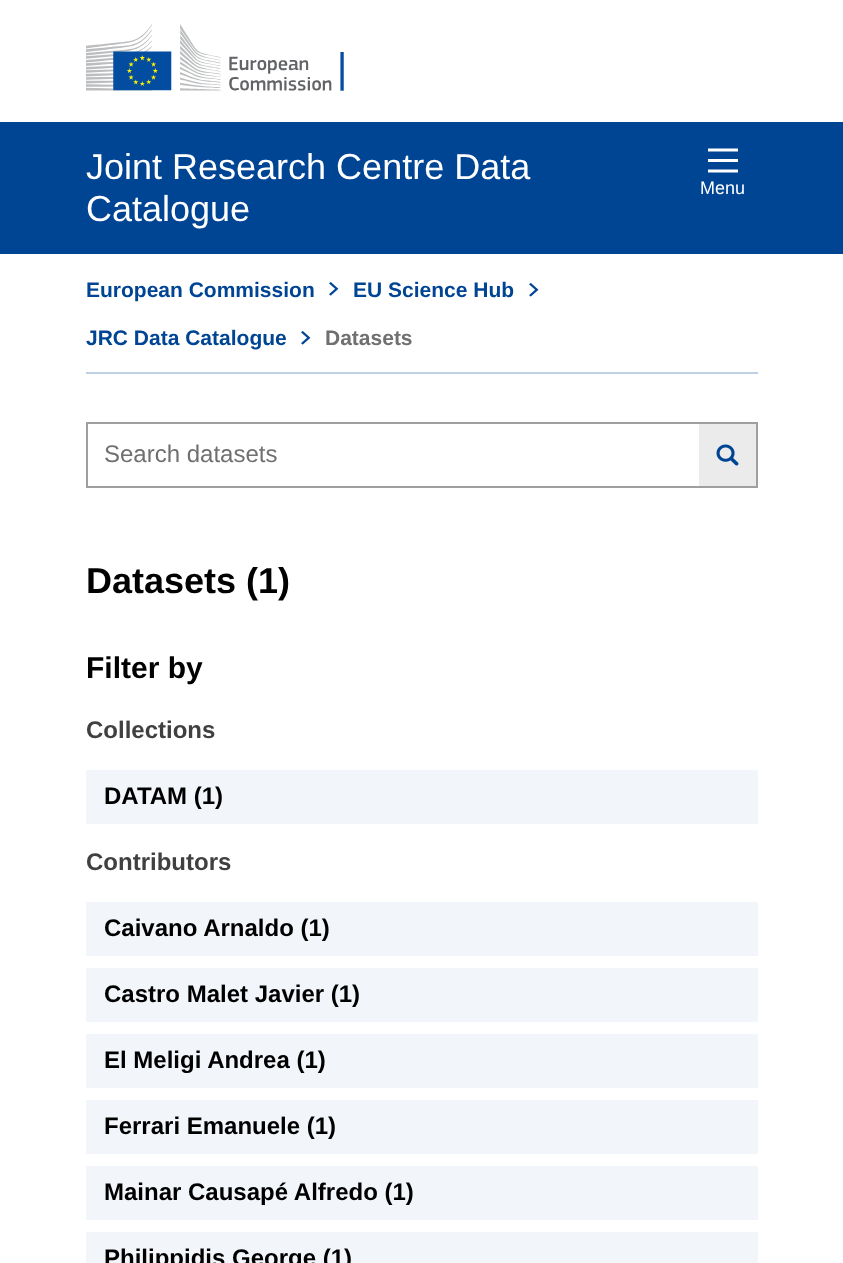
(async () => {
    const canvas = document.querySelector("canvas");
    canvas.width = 843;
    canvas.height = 1263;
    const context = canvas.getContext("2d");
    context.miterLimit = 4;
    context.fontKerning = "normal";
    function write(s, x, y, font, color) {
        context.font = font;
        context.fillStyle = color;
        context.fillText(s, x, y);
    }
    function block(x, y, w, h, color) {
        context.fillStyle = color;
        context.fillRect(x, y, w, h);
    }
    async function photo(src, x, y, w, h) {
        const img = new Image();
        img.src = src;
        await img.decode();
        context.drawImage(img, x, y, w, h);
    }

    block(0, 0, 843, 1263, "rgb(255, 255, 255)");
    await photo("media/1.png", 86, 24, 258, 67);
    block(0, 122, 843, 132, "rgb(0, 68, 148)");
    write("Joint Research Centre Data", 86, 179, "36px Liberation Sans", "rgb(255, 255, 255)");
    write("Catalogue", 86, 221, "36px Liberation Sans", "rgb(255, 255, 255)");
    await photo("media/2.png", 708, 148, 30, 25);
    write("Menu", 700, 194, "18px Liberation Sans", "rgb(255, 255, 255)");
    block(86, 372, 672, 2, "rgb(191, 208, 228)");
    write("European Commission", 86, 297, "bold 21px Liberation Sans", "rgb(0, 68, 148)");
    await photo("media/3.png", 329, 282, 10, 14);
    write("EU Science Hub", 353, 297, "bold 21px Liberation Sans", "rgb(0, 68, 148)");
    await photo("media/4.png", 529, 282, 10, 15);
    write("JRC Data Catalogue", 86, 345, "bold 21px Liberation Sans", "rgb(0, 68, 148)");
    await photo("media/5.png", 301, 331, 10, 14);
    write("Datasets", 325, 345, "bold 21px Liberation Sans", "rgb(112, 112, 112)");
    block(86, 422, 672, 2, "rgb(159, 159, 159)");
    block(86, 486, 613, 2, "rgb(159, 159, 159)");
    block(86, 422, 2, 66, "rgb(159, 159, 159)");
    write("Search datasets", 104, 462, "24px Liberation Sans", "rgb(112, 112, 112)");
    block(699, 424, 57, 62, "rgb(235, 235, 235)");
    block(756, 422, 2, 66, "rgb(159, 159, 159)");
    block(699, 486, 59, 2, "rgb(159, 159, 159)");
    await photo("media/6.png", 716, 444, 23, 22);
    write("Datasets (1)", 86, 593, "bold 36px Liberation Sans", "rgb(0, 0, 0)");
    write("Filter by", 86, 678, "bold 30px Liberation Sans", "rgb(0, 0, 0)");
    write("Collections", 86, 738, "bold 24px Liberation Sans", "rgb(64, 64, 64)");
    block(86, 770, 672, 54, "rgb(242, 245, 249)");
    write("DATAM (1)", 104, 804, "bold 24px Liberation Sans", "rgb(0, 0, 0)");
    write("Contributors", 86, 870, "bold 24px Liberation Sans", "rgb(64, 64, 64)");
    block(86, 902, 672, 54, "rgb(242, 245, 249)");
    write("Caivano Arnaldo (1)", 104, 936, "bold 24px Liberation Sans", "rgb(0, 0, 0)");
    block(86, 968, 672, 54, "rgb(242, 245, 249)");
    write("Castro Malet Javier (1)", 104, 1002, "bold 24px Liberation Sans", "rgb(0, 0, 0)");
    block(86, 1034, 672, 54, "rgb(242, 245, 249)");
    write("El Meligi Andrea (1)", 104, 1068, "bold 24px Liberation Sans", "rgb(0, 0, 0)");
    block(86, 1100, 672, 54, "rgb(242, 245, 249)");
    write("Ferrari Emanuele (1)", 104, 1134, "bold 24px Liberation Sans", "rgb(0, 0, 0)");
    block(86, 1166, 672, 54, "rgb(242, 245, 249)");
    write("Mainar Causapé Alfredo (1)", 104, 1200, "bold 24px Liberation Sans", "rgb(0, 0, 0)");
    block(86, 1232, 672, 31, "rgb(242, 245, 249)");
    write("Philippidis George (1)", 104, 1266, "bold 24px Liberation Sans", "rgb(0, 0, 0)");
})();
